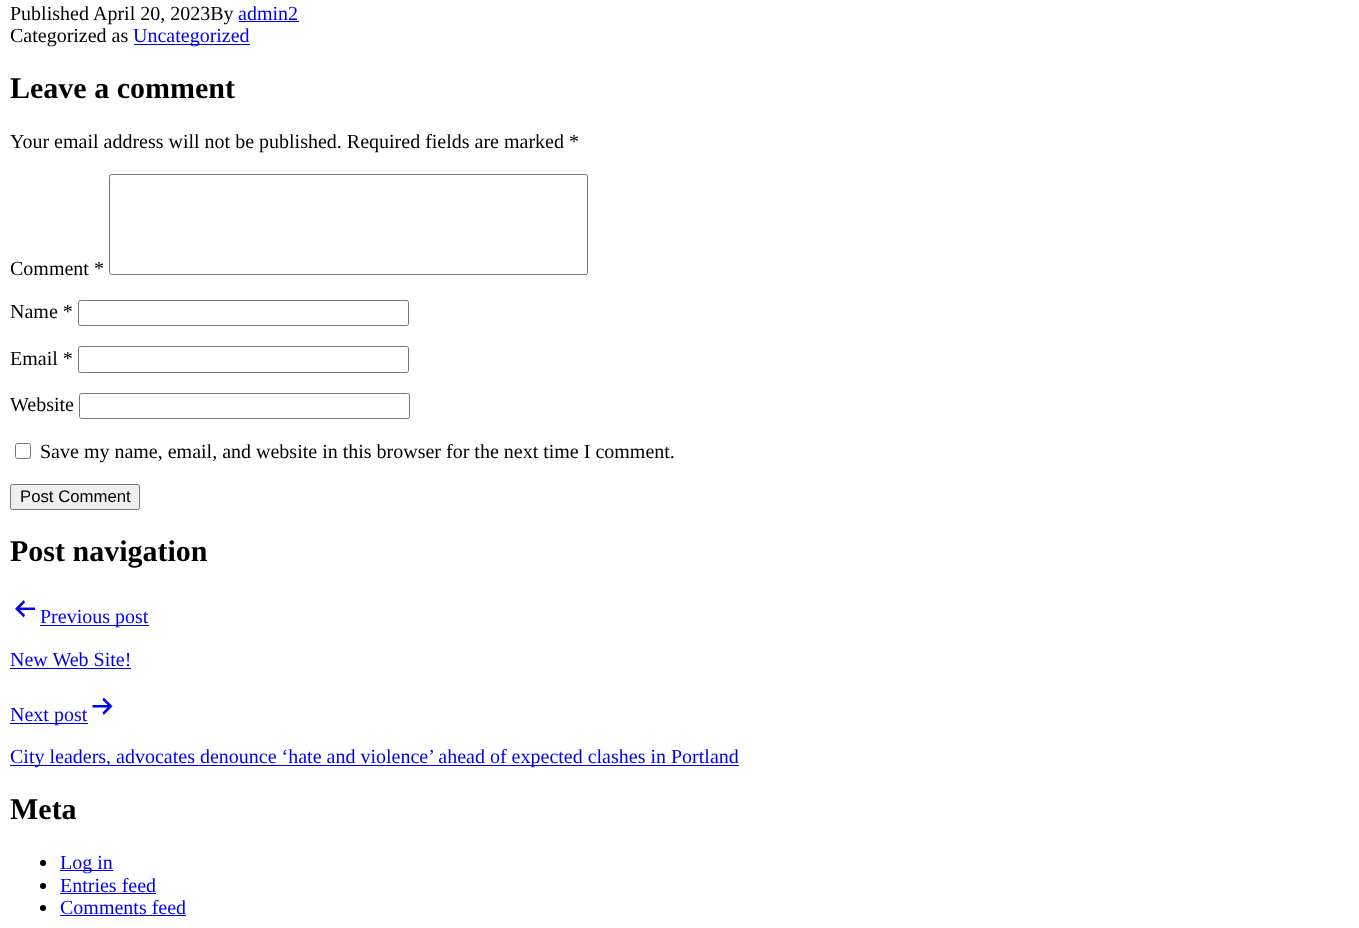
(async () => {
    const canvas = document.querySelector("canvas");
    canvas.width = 1359;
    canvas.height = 928;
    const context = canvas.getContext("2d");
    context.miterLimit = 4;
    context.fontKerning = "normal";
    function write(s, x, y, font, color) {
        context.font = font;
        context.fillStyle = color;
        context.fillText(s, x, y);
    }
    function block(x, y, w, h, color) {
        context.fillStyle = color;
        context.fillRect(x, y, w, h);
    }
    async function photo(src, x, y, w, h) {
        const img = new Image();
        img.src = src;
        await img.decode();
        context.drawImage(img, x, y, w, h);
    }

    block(0, 0, 1359, 928, "rgb(255, 255, 255)");
    write("Published", 10, 20, "20px Liberation Serif", "rgb(0, 0, 0)");
    write("April 20, 2023By", 93, 20, "20px Liberation Serif", "rgb(0, 0, 0)");
    write("admin2", 238, 20, "20px Liberation Serif", "rgb(0, 0, 238)");
    block(239, 21, 60, 1, "rgb(0, 0, 238)");
    write("Categorized as", 10, 42, "20px Liberation Serif", "rgb(0, 0, 0)");
    block(134, 44, 116, 1, "rgb(0, 0, 238)");
    write("Uncategorized", 133, 42, "20px Liberation Serif", "rgb(0, 0, 238)");
    write("Leave a comment", 10, 98, "bold 30px Liberation Serif", "rgb(0, 0, 0)");
    write("Your email address will not be published. Required fields are marked *", 10, 148, "20px Liberation Serif", "rgb(0, 0, 0)");
    write("Comment *", 10, 275, "20px Liberation Serif", "rgb(0, 0, 0)");
    context.beginPath();
    context.roundRect(109.5, 174.5, 478, 100, 2);
    context.strokeStyle = "rgb(118, 118, 118)";
    context.stroke();
    write("Name *", 10, 318, "20px Liberation Serif", "rgb(0, 0, 0)");
    context.beginPath();
    context.roundRect(78.5, 300.5, 330, 25, 2);
    context.stroke();
    write("Email *", 10, 365, "20px Liberation Serif", "rgb(0, 0, 0)");
    context.beginPath();
    context.roundRect(78.5, 346.5, 330, 26, 2);
    context.stroke();
    write("Website", 10, 411, "20px Liberation Serif", "rgb(0, 0, 0)");
    context.beginPath();
    context.roundRect(79.5, 393.5, 330, 25, 2);
    context.stroke();
    context.beginPath();
    context.roundRect(15.5, 443.5, 15, 15, 2);
    context.stroke();
    write("Save my name, email, and website in this browser for the next time I comment.", 40, 458, "20px Liberation Serif", "rgb(0, 0, 0)");
    context.fillStyle = "rgb(239, 239, 239)";
    context.beginPath();
    context.roundRect(10.5, 484.5, 129, 25, 2);
    context.fill();
    context.stroke();
    write("Post Comment", 20, 502, "16.75px Liberation Sans", "rgb(0, 0, 0)");
    write("Post navigation", 10, 561, "bold 30px Liberation Serif", "rgb(0, 0, 0)");
    await photo("media/1.png", 15, 600, 20, 18);
    block(40, 625, 109, 1, "rgb(0, 0, 238)");
    write("Previous post", 40, 623, "20px Liberation Serif", "rgb(0, 0, 238)");
    write("New Web Site!", 10, 666, "20px Liberation Serif", "rgb(0, 0, 238)");
    block(10, 668, 121, 1, "rgb(0, 0, 238)");
    block(10, 723, 78, 1, "rgb(0, 0, 238)");
    write("Next post", 10, 721, "20px Liberation Serif", "rgb(0, 0, 238)");
    await photo("media/2.png", 92, 697, 21, 18);
    block(10, 765, 729, 1, "rgb(0, 0, 238)");
    write("City leaders, advocates denounce ‘hate and violence’ ahead of expected clashes in Portland", 10, 763, "20px Liberation Serif", "rgb(0, 0, 238)");
    write("Meta", 10, 819, "bold 30px Liberation Serif", "rgb(0, 0, 0)");
    context.beginPath();
    context.arc(43, 863, 3, 0, Math.PI * 2);
    context.fill();
    block(60, 870, 53, 1, "rgb(0, 0, 238)");
    write("Log in", 60, 869, "20px Liberation Serif", "rgb(0, 0, 238)");
    context.fillStyle = "rgb(0, 0, 0)";
    context.beginPath();
    context.arc(43, 886, 3, 0, Math.PI * 2);
    context.fill();
    write("Entries feed", 60, 892, "20px Liberation Serif", "rgb(0, 0, 238)");
    block(60, 893, 96, 1, "rgb(0, 0, 238)");
    context.fillStyle = "rgb(0, 0, 0)";
    context.beginPath();
    context.arc(43, 908, 3, 0, Math.PI * 2);
    context.fill();
    write("Comments feed", 60, 914, "20px Liberation Serif", "rgb(0, 0, 238)");
    block(60, 915, 126, 1, "rgb(0, 0, 238)");
})();
